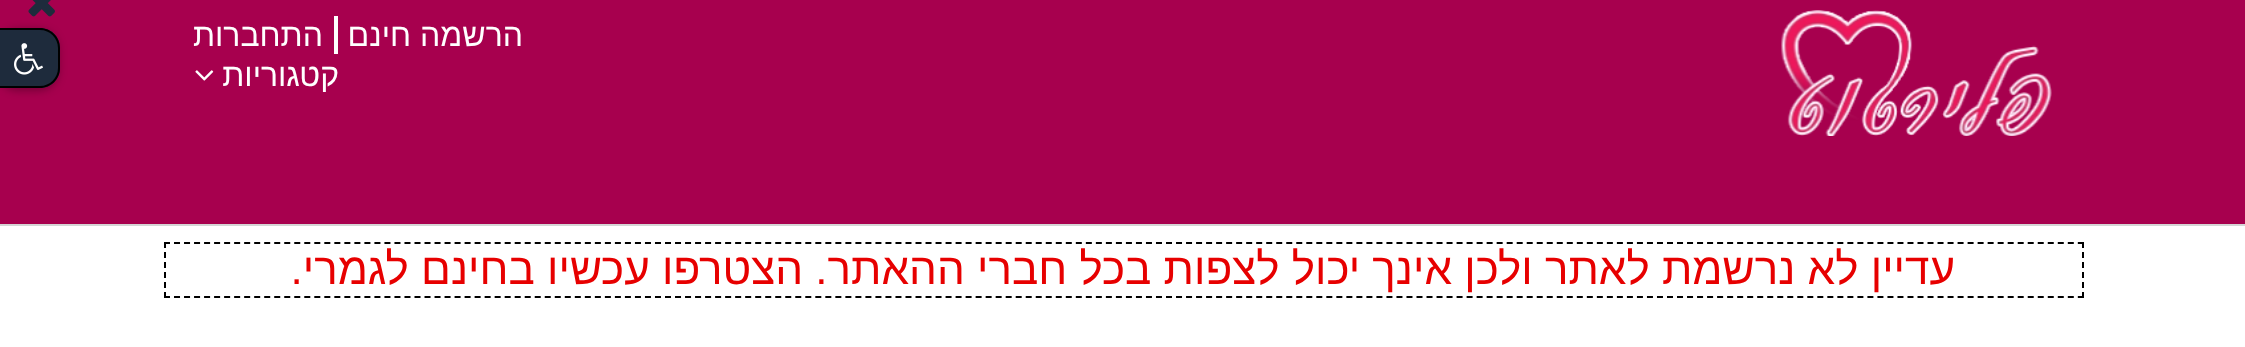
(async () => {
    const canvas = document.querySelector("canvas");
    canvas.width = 2245;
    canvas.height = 347;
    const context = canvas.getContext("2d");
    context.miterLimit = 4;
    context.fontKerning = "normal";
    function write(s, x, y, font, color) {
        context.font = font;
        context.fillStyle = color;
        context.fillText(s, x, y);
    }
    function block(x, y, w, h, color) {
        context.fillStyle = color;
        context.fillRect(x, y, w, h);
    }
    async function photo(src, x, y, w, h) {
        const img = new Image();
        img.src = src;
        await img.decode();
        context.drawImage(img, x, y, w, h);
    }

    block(0, 0, 2245, 347, "rgb(255, 255, 255)");
    block(0, 0, 2245, 224, "rgb(167, 0, 78)");
    block(0, 224, 2245, 2, "rgb(212, 212, 212)");
    context.direction = "rtl";
    write("הרשמה חינם", 523, 46, "32px Liberation Sans", "rgb(255, 255, 255)");
    block(334, 16, 4, 38, "rgb(255, 255, 255)");
    write("התחברות", 323, 46, "32px Liberation Sans", "rgb(255, 255, 255)");
    await photo("media/1.png", 1781, 10, 271, 126);
    write("קטגוריות", 339, 86, "32px Liberation Sans", "rgb(255, 255, 255)");
    await photo("media/2.png", 195, 70, 19, 11);
    context.fillStyle = "rgba(0, 0, 0, 0.35)";
    context.filter = "blur(5px)";
    context.beginPath();
    context.roundRect(-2, 30, 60, 60, 20);
    context.fill();
    context.filter = "none";
    context.fillStyle = "rgb(30, 43, 60)";
    context.beginPath();
    context.roundRect(0, 28, 60, 60, [0, 20, 20, 0]);
    context.fill();
    context.fillStyle = "rgb(0, 0, 0)";
    context.beginPath();
    context.moveTo(0, 28);
    context.lineTo(40, 28);
    context.bezierCurveTo(51, 28, 60, 37, 60, 48);
    context.lineTo(60, 68);
    context.bezierCurveTo(60, 79, 51, 88, 40, 88);
    context.lineTo(0, 88);
    context.closePath();
    context.moveTo(0, 30);
    context.lineTo(40, 30);
    context.bezierCurveTo(50, 30, 58, 38, 58, 48);
    context.lineTo(58, 68);
    context.bezierCurveTo(58, 78, 50, 86, 40, 86);
    context.lineTo(0, 86);
    context.closePath();
    context.fill("evenodd");
    await photo("media/3.png", 28, 0, 27, 17);
    await photo("media/4.png", 14, 43, 29, 32);
    context.beginPath();
    context.moveTo(164, 243);
    context.lineTo(2084, 243);
    context.strokeStyle = "rgb(0, 0, 0)";
    context.lineWidth = 2;
    context.setLineDash([6, 4.02]);
    context.stroke();
    context.beginPath();
    context.moveTo(2083, 242);
    context.lineTo(2083, 298);
    context.setLineDash([6, 4]);
    context.stroke();
    context.beginPath();
    context.moveTo(164, 297);
    context.lineTo(2084, 297);
    context.setLineDash([6, 4.02]);
    context.stroke();
    context.beginPath();
    context.moveTo(165, 242);
    context.lineTo(165, 298);
    context.setLineDash([6, 4]);
    context.stroke();
    write("עדיין לא נרשמת לאתר ולכן אינך יכול לצפות בכל חברי ההאתר. הצטרפו עכשיו בחינם לגמרי.", 1955, 284, "44px Liberation Sans", "rgb(231, 0, 0)");
})();
